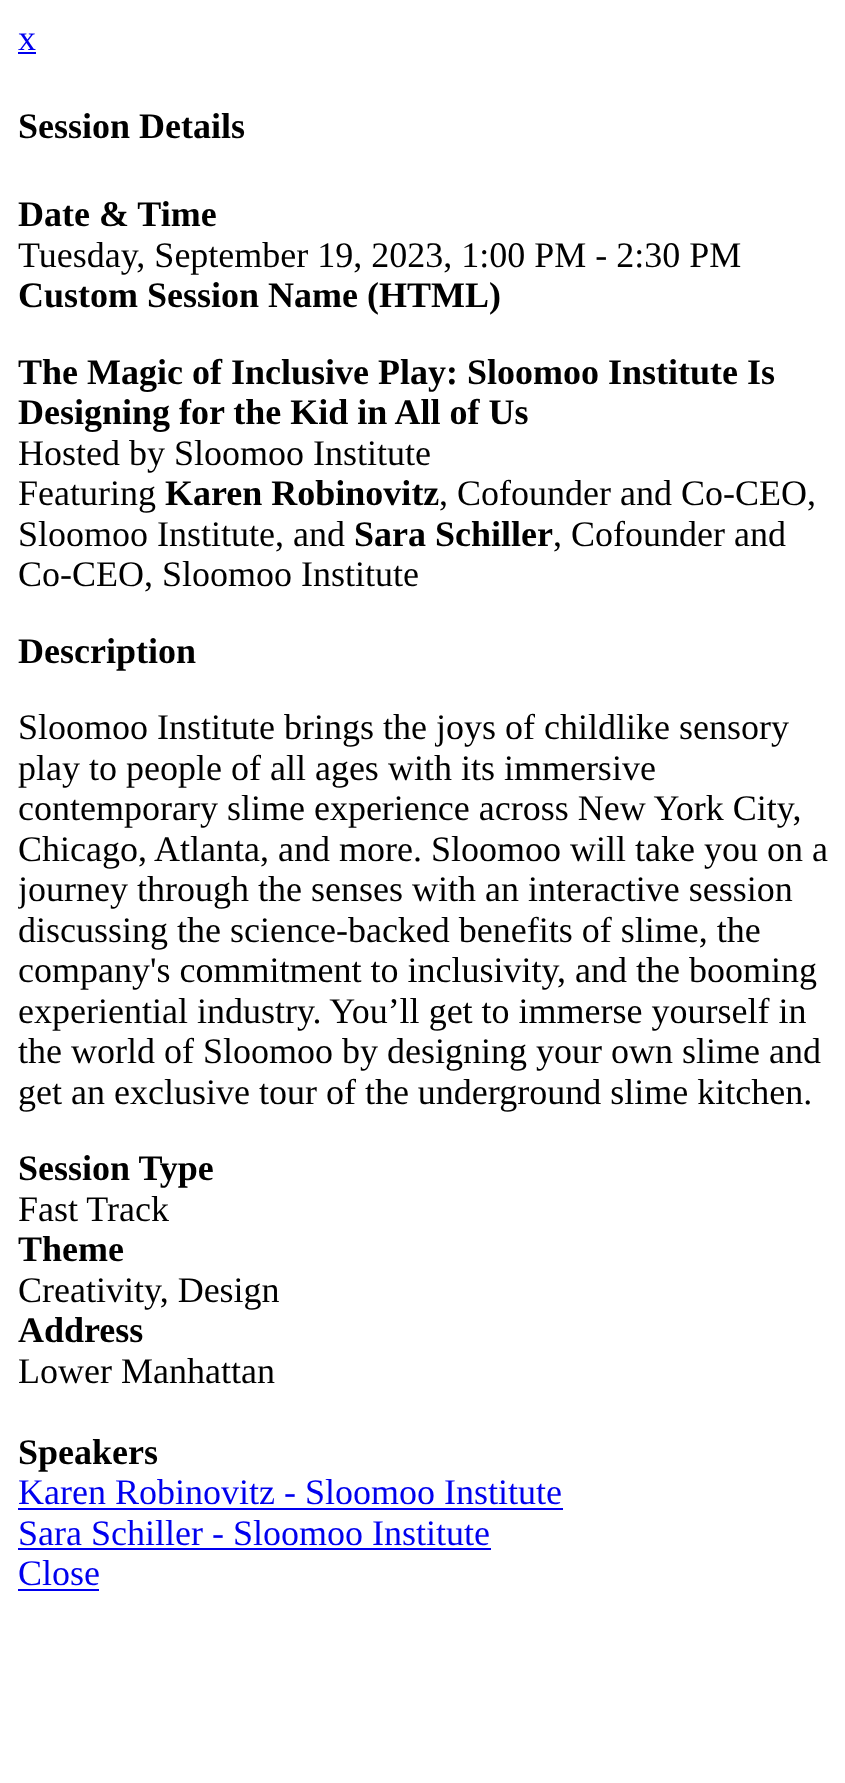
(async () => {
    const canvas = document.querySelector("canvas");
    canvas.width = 845;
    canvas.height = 1783;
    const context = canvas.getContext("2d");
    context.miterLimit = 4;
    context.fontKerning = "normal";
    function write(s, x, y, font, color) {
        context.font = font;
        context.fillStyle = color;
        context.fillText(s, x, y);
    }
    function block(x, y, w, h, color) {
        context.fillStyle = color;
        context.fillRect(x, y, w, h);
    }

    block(0, 0, 845, 1783, "rgb(255, 255, 255)");
    write("x", 18, 50, "36px Liberation Serif", "rgb(0, 0, 238)");
    block(18, 52, 18, 2, "rgb(0, 0, 238)");
    write("Session Details", 18, 138, "bold 36px Liberation Serif", "rgb(0, 0, 0)");
    write("Date & Time", 18, 226, "bold 36px Liberation Serif", "rgb(0, 0, 0)");
    write("Tuesday, September 19, 2023, 1:00 PM - 2:30 PM", 18, 267, "36px Liberation Serif", "rgb(0, 0, 0)");
    write("Custom Session Name (HTML)", 18, 307, "bold 36px Liberation Serif", "rgb(0, 0, 0)");
    write("The Magic of Inclusive Play: Sloomoo Institute Is", 18, 384, "bold 36px Liberation Serif", "rgb(0, 0, 0)");
    write("Designing for the Kid in All of Us", 18, 424, "bold 36px Liberation Serif", "rgb(0, 0, 0)");
    write("Hosted by Sloomoo Institute", 18, 465, "36px Liberation Serif", "rgb(0, 0, 0)");
    write("Featuring", 18, 505, "36px Liberation Serif", "rgb(0, 0, 0)");
    write("Karen Robinovitz", 165, 505, "bold 36px Liberation Serif", "rgb(0, 0, 0)");
    write(", Cofounder and Co-CEO,", 439, 505, "36px Liberation Serif", "rgb(0, 0, 0)");
    write("Sloomoo Institute, and", 18, 546, "36px Liberation Serif", "rgb(0, 0, 0)");
    write("Sara Schiller", 354, 546, "bold 36px Liberation Serif", "rgb(0, 0, 0)");
    write(", Cofounder and", 553, 546, "36px Liberation Serif", "rgb(0, 0, 0)");
    write("Co-CEO, Sloomoo Institute", 18, 586, "36px Liberation Serif", "rgb(0, 0, 0)");
    write("Description", 18, 663, "bold 36px Liberation Serif", "rgb(0, 0, 0)");
    write("Sloomoo Institute brings the joys of childlike sensory", 18, 739, "36px Liberation Serif", "rgb(0, 0, 0)");
    write("play to people of all ages with its immersive", 18, 780, "36px Liberation Serif", "rgb(0, 0, 0)");
    write("contemporary slime experience across New York City,", 18, 820, "36px Liberation Serif", "rgb(0, 0, 0)");
    write("Chicago, Atlanta, and more. Sloomoo will take you on a", 18, 861, "36px Liberation Serif", "rgb(0, 0, 0)");
    context.save();
    context.beginPath();
    context.rect(18, 18, 810, 1577);
    context.clip();
    write("journey through the senses with an interactive session", 18, 901, "36px Liberation Serif", "rgb(0, 0, 0)");
    context.restore();
    write("discussing the science-backed benefits of slime, the", 18, 942, "36px Liberation Serif", "rgb(0, 0, 0)");
    write("company's commitment to inclusivity, and the booming", 18, 982, "36px Liberation Serif", "rgb(0, 0, 0)");
    write("experiential industry. You’ll get to immerse yourself in", 18, 1023, "36px Liberation Serif", "rgb(0, 0, 0)");
    write("the world of Sloomoo by designing your own slime and", 18, 1063, "36px Liberation Serif", "rgb(0, 0, 0)");
    write("get an exclusive tour of the underground slime kitchen.", 18, 1104, "36px Liberation Serif", "rgb(0, 0, 0)");
    write("Session Type", 18, 1180, "bold 36px Liberation Serif", "rgb(0, 0, 0)");
    write("Fast Track", 18, 1221, "36px Liberation Serif", "rgb(0, 0, 0)");
    write("Theme", 18, 1261, "bold 36px Liberation Serif", "rgb(0, 0, 0)");
    write("Creativity, Design", 18, 1302, "36px Liberation Serif", "rgb(0, 0, 0)");
    write("Address", 18, 1342, "bold 36px Liberation Serif", "rgb(0, 0, 0)");
    write("Lower Manhattan", 18, 1383, "36px Liberation Serif", "rgb(0, 0, 0)");
    write("Speakers", 18, 1464, "bold 36px Liberation Serif", "rgb(0, 0, 0)");
    write("Karen Robinovitz - Sloomoo Institute", 18, 1504, "36px Liberation Serif", "rgb(0, 0, 238)");
    block(18, 1508, 545, 2, "rgb(0, 0, 238)");
    write("Sara Schiller - Sloomoo Institute", 18, 1545, "36px Liberation Serif", "rgb(0, 0, 238)");
    block(18, 1548, 473, 2, "rgb(0, 0, 238)");
    write("Close", 18, 1585, "36px Liberation Serif", "rgb(0, 0, 238)");
    block(18, 1589, 81, 2, "rgb(0, 0, 238)");
})();
